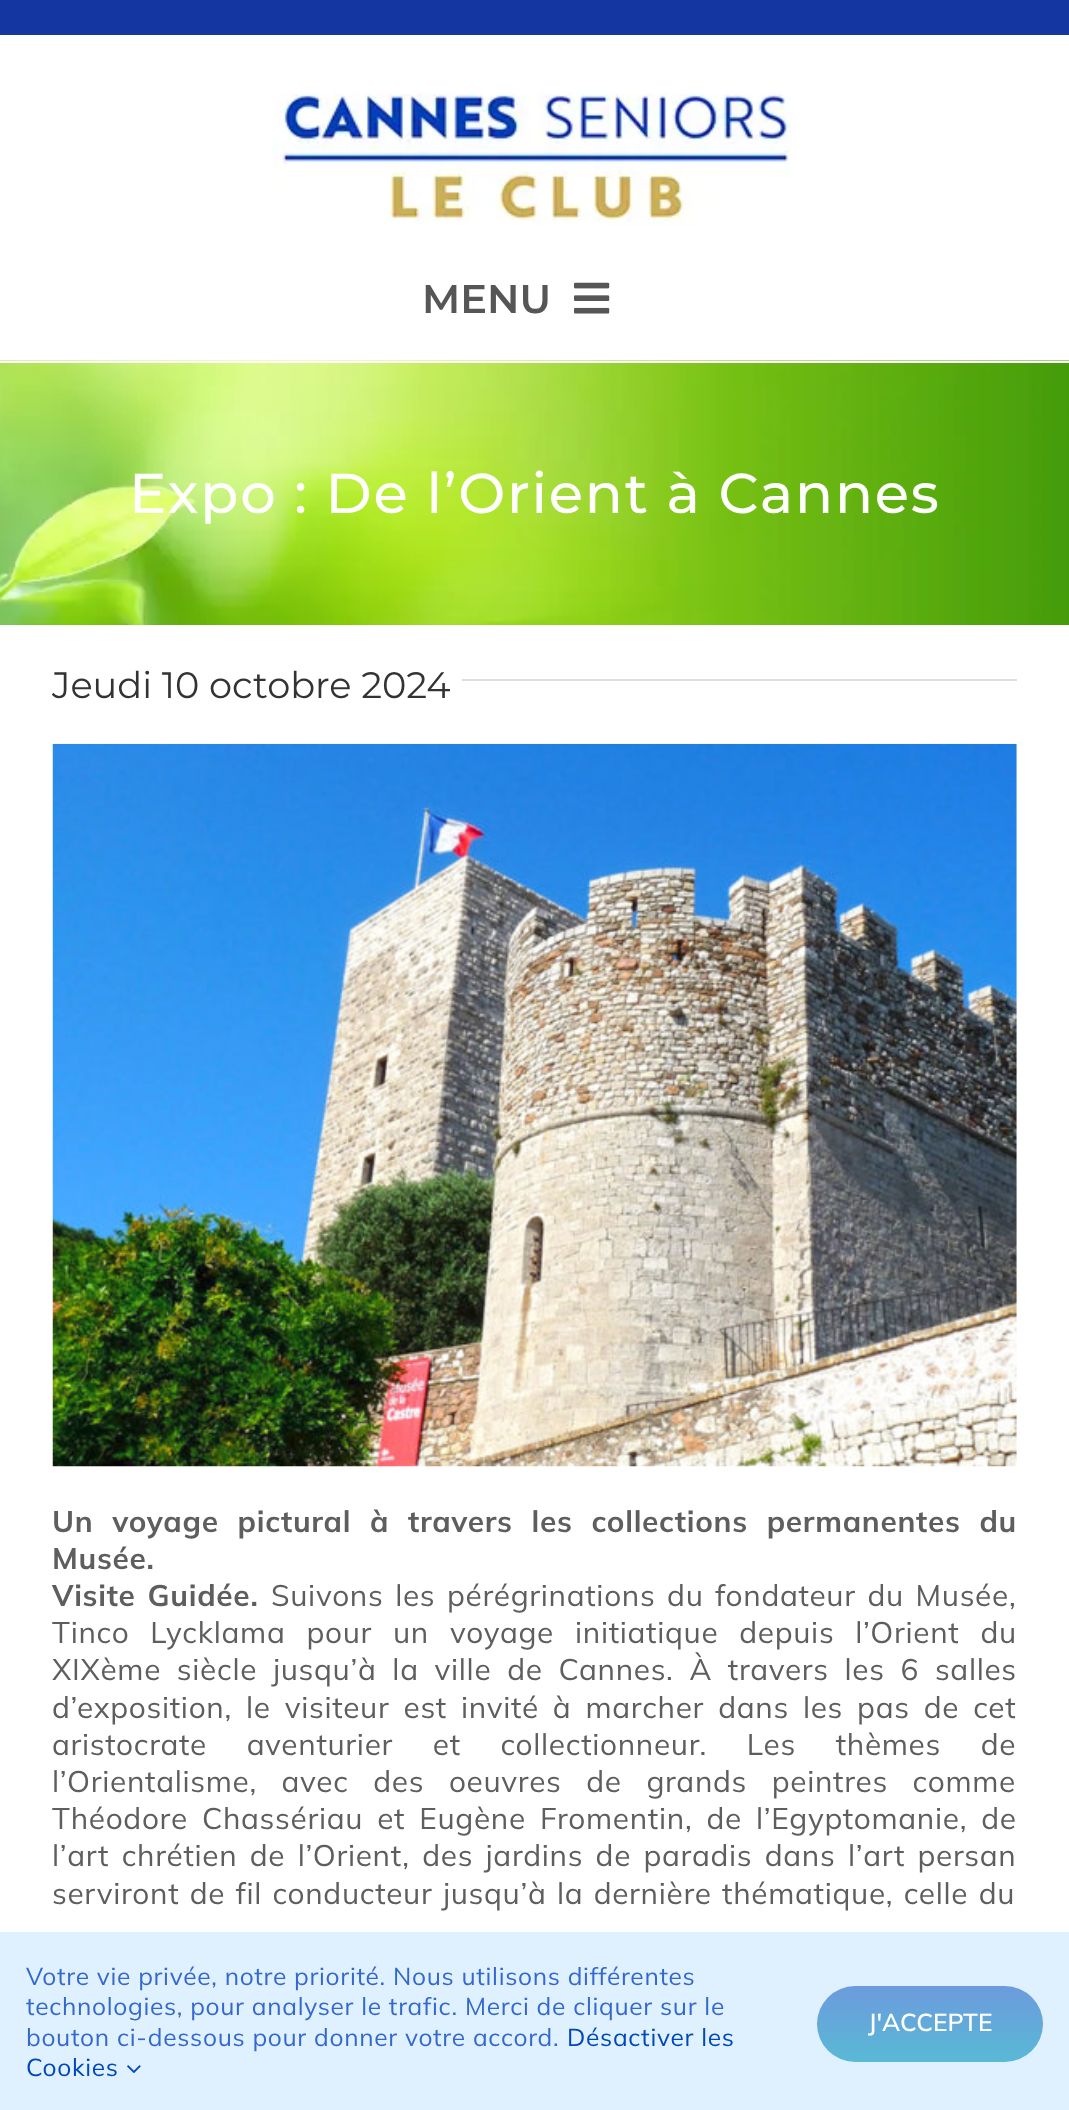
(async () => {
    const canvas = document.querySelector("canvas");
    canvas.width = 1069;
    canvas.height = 2110;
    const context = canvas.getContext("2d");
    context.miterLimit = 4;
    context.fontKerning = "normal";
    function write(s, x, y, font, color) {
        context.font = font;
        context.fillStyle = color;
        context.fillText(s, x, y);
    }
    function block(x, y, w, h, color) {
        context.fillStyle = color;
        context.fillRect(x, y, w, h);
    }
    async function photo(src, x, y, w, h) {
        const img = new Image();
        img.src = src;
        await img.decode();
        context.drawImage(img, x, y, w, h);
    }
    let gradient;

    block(0, 0, 1069, 2110, "rgb(255, 255, 255)");
    block(0, 0, 1069, 35, "rgb(19, 54, 160)");
    await photo("media/1.png", 273, 92, 519, 135);
    write("MENU", 422, 313, "600 40px Montserrat", "rgb(86, 86, 86)");
    await photo("media/2.png", 574, 282, 36, 32);
    await photo("media/3.png", 0, 360, 1069, 265);
    block(0, 361, 1069, 2, "rgb(255, 255, 255)");
    context.letterSpacing = "1.75px";
    write("Expo : De l’Orient à Cannes", 129, 513, "500 56px Montserrat", "rgb(254, 255, 253)");
    context.letterSpacing = "0px";
    write("Jeudi 10 octobre 2024", 52, 698, "36.75px Montserrat", "rgb(51, 51, 51)");
    block(462, 679, 555, 2, "rgb(224, 222, 222)");
    await photo("media/4.png", 52, 743, 965, 724);
    context.letterSpacing = "0.7px";
    context.wordSpacing = "10px";
    write("Un voyage pictural à travers les collections permanentes du", 52, 1532, "bold 29.75px Mulish", "rgb(94, 94, 94)");
    context.wordSpacing = "0px";
    write("Musée.", 52, 1569, "bold 29.75px Mulish", "rgb(94, 94, 94)");
    context.wordSpacing = "3.25px";
    write("Visite Guidée.", 52, 1606, "bold 29.75px Mulish", "rgb(94, 94, 94)");
    write("Suivons les pérégrinations du fondateur du Musée,", 271, 1606, "29.75px Mulish", "rgb(94, 94, 94)");
    context.wordSpacing = "12.5px";
    write("Tinco Lycklama pour un voyage initiatique depuis l’Orient du", 52, 1643, "29.75px Mulish", "rgb(94, 94, 94)");
    context.wordSpacing = "7.4px";
    write("XIXème siècle jusqu’à la ville de Cannes. À travers les 6 salles", 52, 1680, "29.75px Mulish", "rgb(94, 94, 94)");
    context.wordSpacing = "5.6px";
    write("d’exposition, le visiteur est invité à marcher dans les pas de cet", 52, 1718, "29.75px Mulish", "rgb(94, 94, 94)");
    context.wordSpacing = "31.25px";
    write("aristocrate aventurier et collectionneur. Les thèmes de", 52, 1755, "29.75px Mulish", "rgb(94, 94, 94)");
    context.wordSpacing = "16.25px";
    write("l’Orientalisme, avec des oeuvres de grands peintres comme", 52, 1792, "29.75px Mulish", "rgb(94, 94, 94)");
    context.wordSpacing = "5.6px";
    write("Théodore Chassériau et Eugène Fromentin, de l’Egyptomanie, de", 52, 1829, "29.75px Mulish", "rgb(94, 94, 94)");
    context.wordSpacing = "4px";
    write("l’art chrétien de l’Orient, des jardins de paradis dans l’art persan", 52, 1866, "29.75px Mulish", "rgb(94, 94, 94)");
    context.wordSpacing = "2px";
    write("serviront de fil conducteur jusqu’à la dernière thématique, celle du", 52, 1904, "29.75px Mulish", "rgb(94, 94, 94)");
    block(0, 1932, 1069, 178, "rgba(219, 240, 255, 0.9)");
    context.wordSpacing = "0px";
    write("Votre vie privée, notre priorité. Nous utilisons différentes", 26, 1985, "24.5px Mulish", "rgb(53, 104, 206)");
    write("technologies, pour analyser le trafic. Merci de cliquer sur le", 26, 2015, "24.5px Mulish", "rgb(53, 104, 206)");
    write("bouton ci-dessous pour donner votre accord.", 26, 2046, "24.5px Mulish", "rgb(53, 104, 206)");
    write("Désactiver les", 567, 2046, "24.5px Mulish", "rgb(0, 71, 186)");
    write("Cookies", 26, 2076, "24.5px Mulish", "rgb(0, 71, 186)");
    await photo("media/5.png", 127, 2065, 14, 9);
    gradient = context.createLinearGradient(930, 1986, 930, 2062);
    gradient.addColorStop(0, "rgb(108, 155, 221)");
    gradient.addColorStop(1, "rgb(89, 185, 214)");
    context.fillStyle = gradient;
    context.beginPath();
    context.roundRect(817, 1986, 226, 76, 38);
    context.fill();
    context.letterSpacing = "0px";
    write("J'ACCEPTE", 868, 2031, "600 24.5px Mulish", "rgb(254, 255, 253)");
})();
